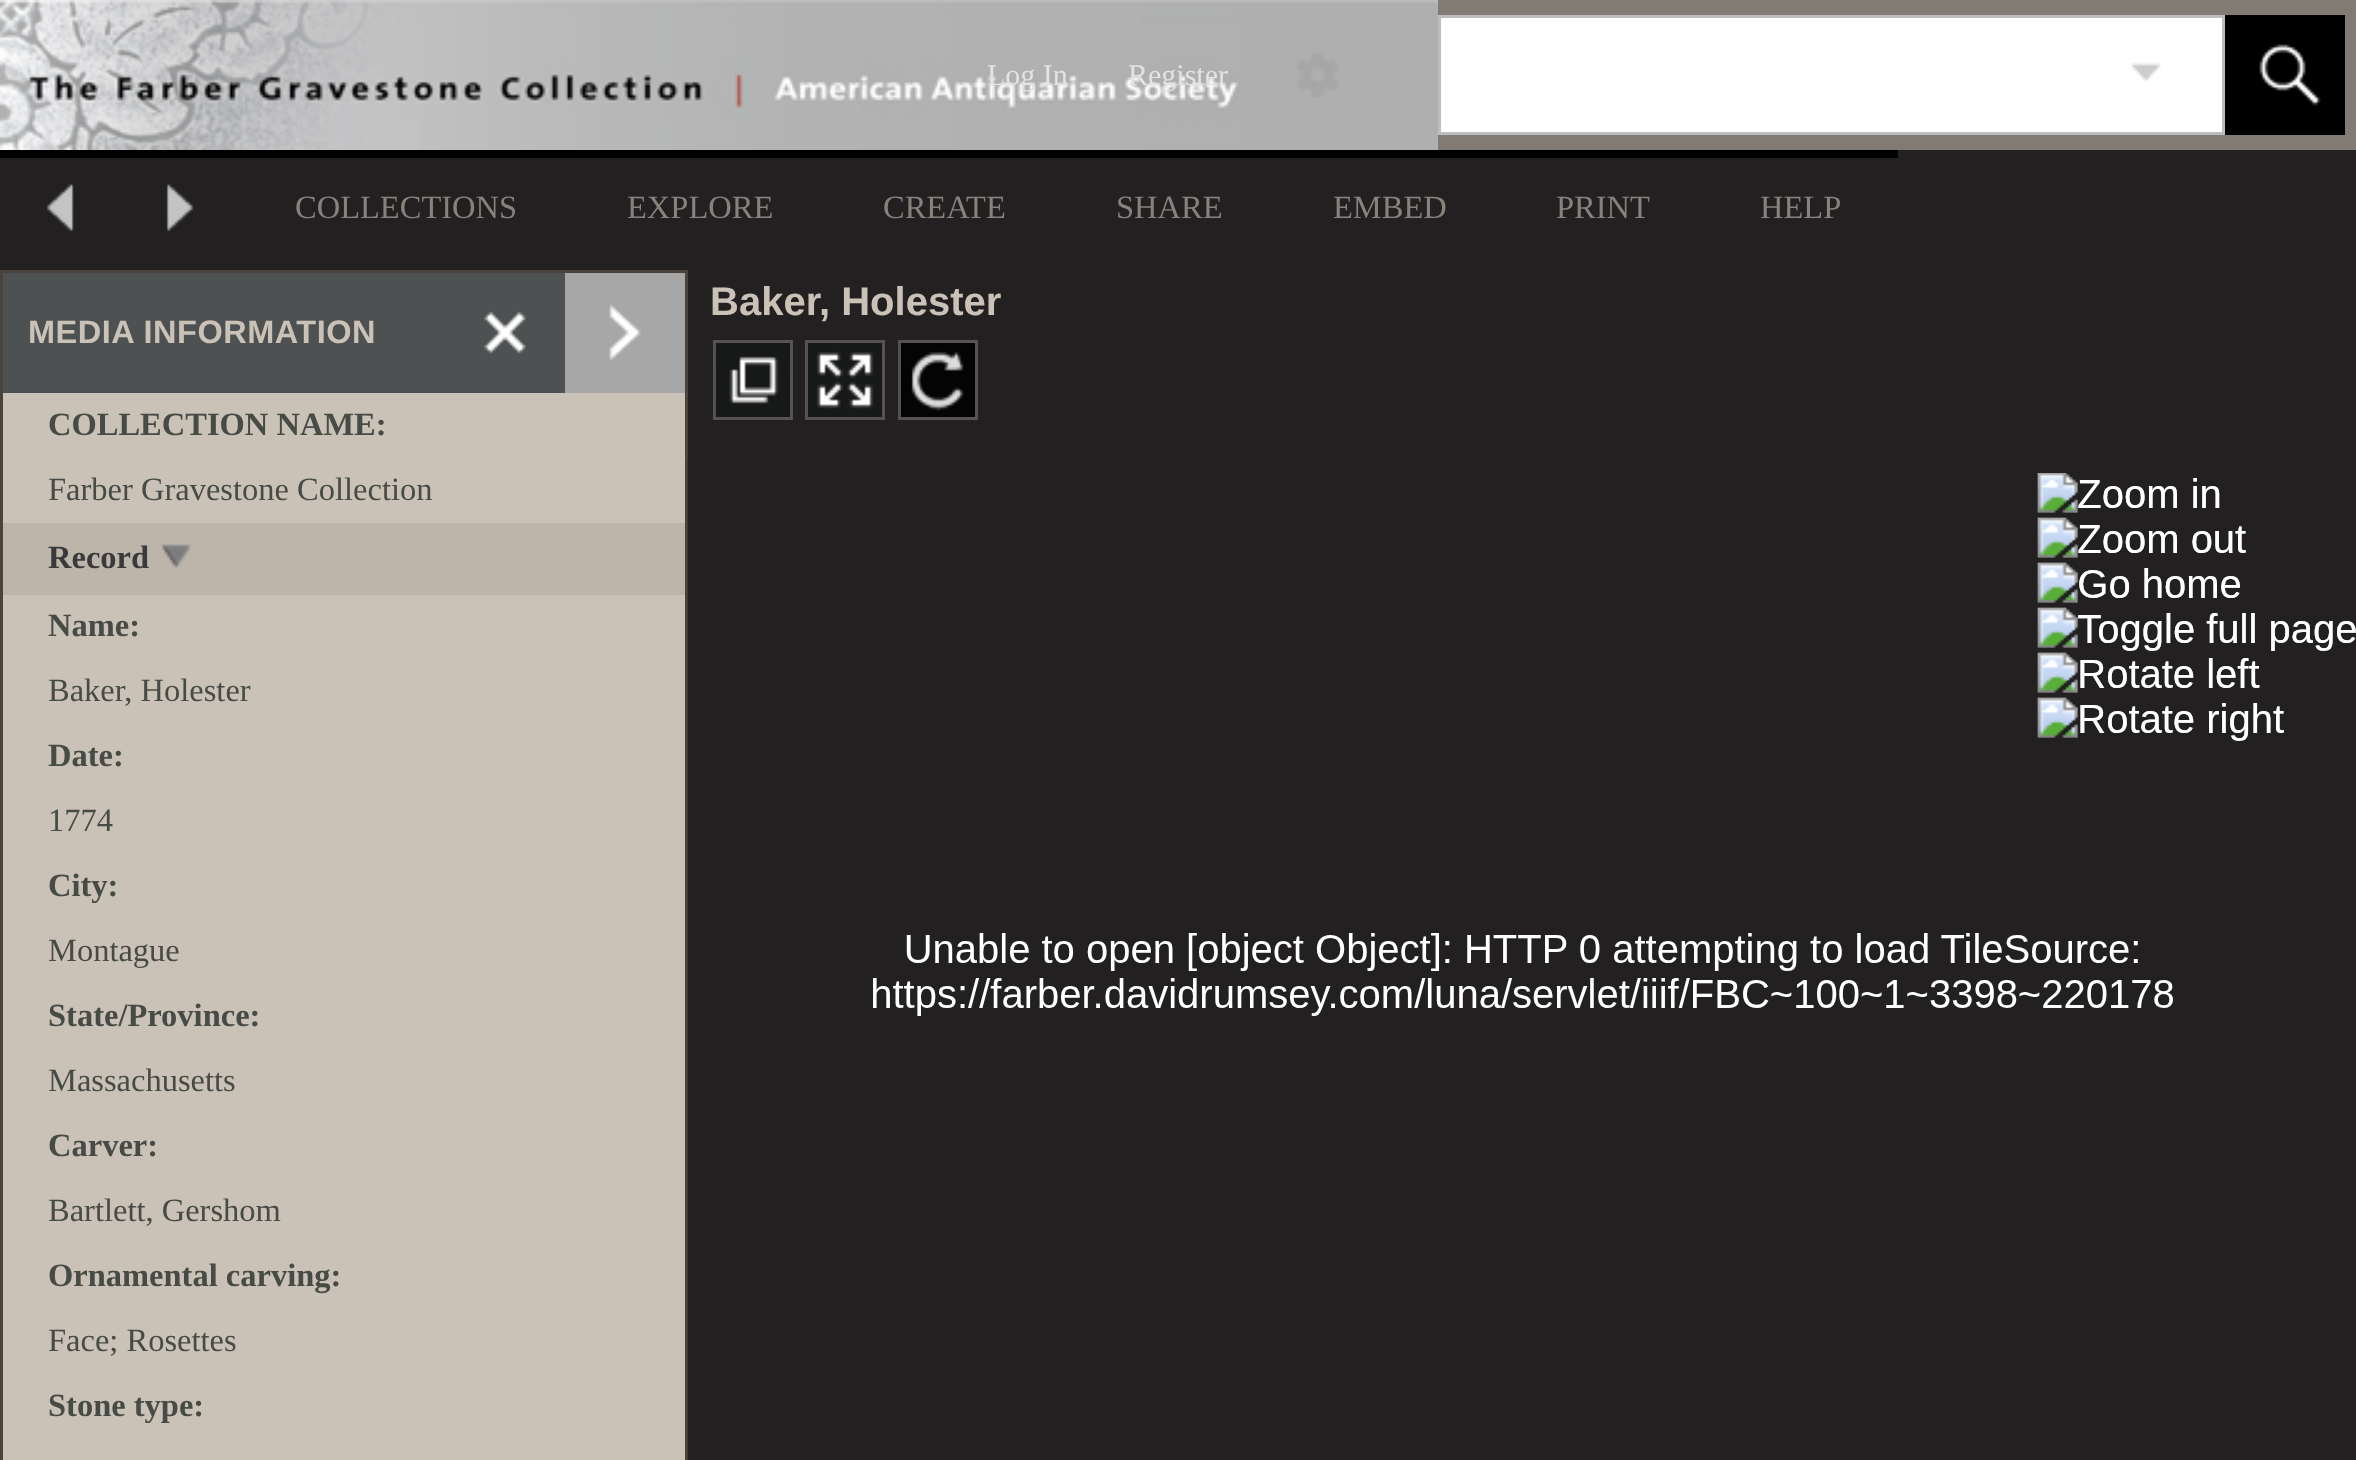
(async () => {
    const canvas = document.querySelector("canvas");
    canvas.width = 2356;
    canvas.height = 1460;
    const context = canvas.getContext("2d");
    context.miterLimit = 4;
    context.fontKerning = "normal";
    function write(s, x, y, font, color) {
        context.font = font;
        context.fillStyle = color;
        context.fillText(s, x, y);
    }
    function block(x, y, w, h, color) {
        context.fillStyle = color;
        context.fillRect(x, y, w, h);
    }
    async function photo(src, x, y, w, h) {
        const img = new Image();
        img.src = src;
        await img.decode();
        context.drawImage(img, x, y, w, h);
    }

    block(0, 0, 2356, 1460, "rgb(34, 32, 33)");
    await photo("media/1.png", 0, 0, 1438, 150);
    write("Log In", 987, 85, "30px Liberation Serif", "rgb(227, 227, 227)");
    write("Register", 1128, 85, "30px Liberation Serif", "rgb(227, 227, 227)");
    await photo("media/2.png", 1296, 53, 42, 44);
    block(1438, 0, 918, 150, "rgb(129, 123, 116)");
    context.fillStyle = "rgb(255, 255, 255)";
    context.beginPath();
    context.rect(1439.5, 16.5, 784, 117);
    context.fill();
    context.strokeStyle = "rgb(188, 190, 192)";
    context.lineWidth = 3;
    context.stroke();
    await photo("media/3.png", 2130, 62, 31, 19);
    block(2225, 15, 120, 120, "rgb(0, 0, 0)");
    await photo("media/4.png", 2259, 44, 62, 62);
    await photo("media/5.png", 46, 182, 28, 51);
    block(0, 150, 1898, 8, "rgb(0, 0, 0)");
    await photo("media/6.png", 166, 182, 28, 51);
    write("COLLECTIONS", 295, 218, "32.5px Liberation Serif", "rgb(137, 129, 124)");
    write("EXPLORE", 627, 218, "32.5px Liberation Serif", "rgb(137, 129, 124)");
    write("CREATE", 883, 218, "32.5px Liberation Serif", "rgb(137, 129, 124)");
    write("SHARE", 1116, 218, "32.5px Liberation Serif", "rgb(137, 129, 124)");
    write("EMBED", 1333, 218, "32.5px Liberation Serif", "rgb(137, 129, 124)");
    write("PRINT", 1556, 218, "32.5px Liberation Serif", "rgb(137, 129, 124)");
    write("HELP", 1760, 218, "32.5px Liberation Serif", "rgb(137, 129, 124)");
    write("Baker, Holester", 710, 315, "bold 40px Liberation Sans", "rgb(202, 194, 183)");
    await photo("media/7.png", 716, 343, 74, 74);
    context.strokeStyle = "rgb(85, 82, 80)";
    context.strokeRect(714.5, 341.5, 77, 77);
    await photo("media/8.png", 808, 343, 74, 74);
    context.strokeRect(806.5, 341.5, 77, 77);
    await photo("media/9.png", 901, 343, 74, 74);
    context.strokeRect(899.5, 341.5, 77, 77);
    context.strokeStyle = "rgb(74, 66, 61)";
    context.strokeRect(1.5, 271.5, 685, 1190);
    await photo("media/10.png", 687, 460, 1669, 1000);
    block(3, 273, 562, 120, "rgb(78, 81, 81)");
    context.letterSpacing = "0.5px";
    write("MEDIA INFORMATION", 28, 343, "bold 32.5px Liberation Sans", "rgb(202, 194, 183)");
    await photo("media/11.png", 484, 311, 42, 43);
    block(565, 273, 120, 120, "rgb(167, 167, 167)");
    await photo("media/12.png", 609, 304, 32, 57);
    block(3, 393, 682, 1067, "rgb(202, 194, 183)");
    context.letterSpacing = "0px";
    write("COLLECTION NAME:", 48, 435, "bold 32.5px Liberation Serif", "rgb(71, 75, 69)");
    write("Farber Gravestone Collection", 48, 500, "32.5px Liberation Serif", "rgb(71, 75, 69)");
    block(3, 523, 682, 72, "rgb(190, 181, 170)");
    write("Record", 48, 568, "bold 32.5px Liberation Serif", "rgb(57, 58, 59)");
    await photo("media/13.png", 161, 544, 30, 25);
    write("Name:", 48, 636, "bold 32.5px Liberation Serif", "rgb(71, 75, 69)");
    write("Baker, Holester", 48, 701, "32.5px Liberation Serif", "rgb(71, 75, 69)");
    write("Date:", 48, 766, "bold 32.5px Liberation Serif", "rgb(71, 75, 69)");
    write("1774", 48, 831, "32.5px Liberation Serif", "rgb(71, 75, 69)");
    write("City:", 48, 896, "bold 32.5px Liberation Serif", "rgb(71, 75, 69)");
    write("Montague", 48, 961, "32.5px Liberation Serif", "rgb(71, 75, 69)");
    write("State/Province:", 48, 1026, "bold 32.5px Liberation Serif", "rgb(71, 75, 69)");
    write("Massachusetts", 48, 1091, "32.5px Liberation Serif", "rgb(71, 75, 69)");
    write("Carver:", 48, 1156, "bold 32.5px Liberation Serif", "rgb(71, 75, 69)");
    write("Bartlett, Gershom", 48, 1221, "32.5px Liberation Serif", "rgb(71, 75, 69)");
    write("Ornamental carving:", 48, 1286, "bold 32.5px Liberation Serif", "rgb(71, 75, 69)");
    write("Face; Rosettes", 48, 1351, "32.5px Liberation Serif", "rgb(71, 75, 69)");
    write("Stone type:", 48, 1416, "bold 32.5px Liberation Serif", "rgb(71, 75, 69)");
})();
